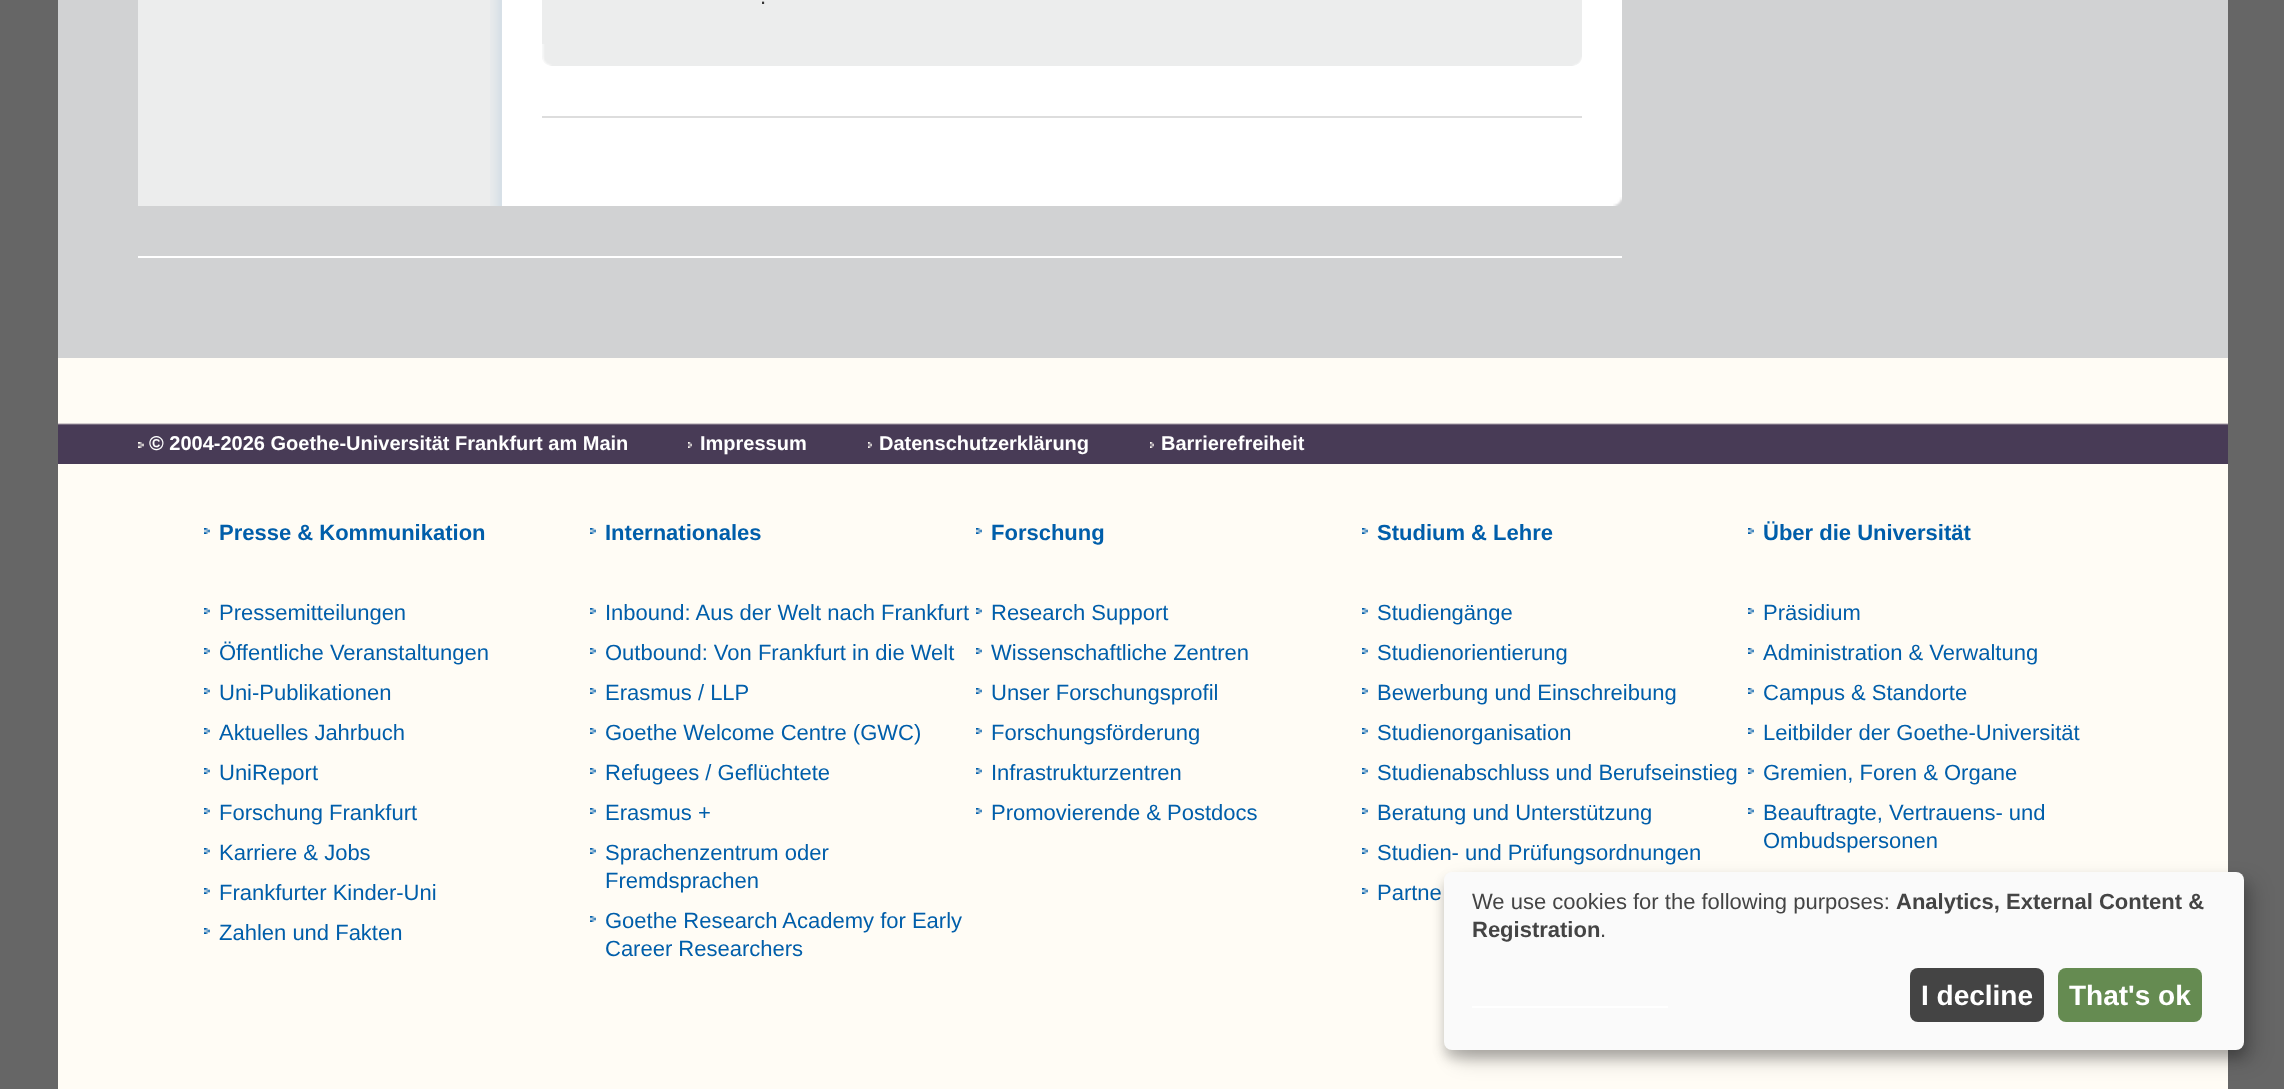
(async () => {
    const canvas = document.querySelector("canvas");
    canvas.width = 2284;
    canvas.height = 1089;
    const context = canvas.getContext("2d");
    context.miterLimit = 4;
    context.fontKerning = "normal";
    function write(s, x, y, font, color) {
        context.font = font;
        context.fillStyle = color;
        context.fillText(s, x, y);
    }
    function block(x, y, w, h, color) {
        context.fillStyle = color;
        context.fillRect(x, y, w, h);
    }
    function card(x, y, w, h, r, color) {
        context.fillStyle = color;
        context.beginPath();
        context.roundRect(x, y, w, h, r);
        context.fill();
    }
    async function photo(src, x, y, w, h) {
        const img = new Image();
        img.src = src;
        await img.decode();
        context.drawImage(img, x, y, w, h);
    }

    block(0, 0, 2284, 1089, "rgb(102, 102, 102)");
    block(58, 0, 2170, 358, "rgb(209, 210, 211)");
    block(138, 0, 352, 206, "rgb(236, 237, 237)");
    await photo("media/1.png", 490, 0, 12, 206);
    block(502, 0, 1120, 206, "rgb(255, 255, 255)");
    card(542, -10, 1040, 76, 10, "rgb(236, 237, 237)");
    write(".", 760, 4, "22px Liberation Sans", "rgb(51, 51, 51)");
    await photo("media/2.png", 542, 44, 1039, 21);
    block(542, 116, 1040, 2, "rgb(221, 221, 221)");
    await photo("media/3.png", 1613, 197, 9, 9);
    block(138, 256, 1484, 2, "rgb(255, 255, 255)");
    block(58, 358, 2170, 731, "rgb(255, 252, 245)");
    await photo("media/4.png", 58, 423, 2170, 41);
    await photo("media/5.png", 138, 442, 6, 6);
    write("© 2004-2026 Goethe-Universität Frankfurt am Main", 149, 450, "bold 20px Liberation Sans", "rgb(255, 255, 255)");
    await photo("media/6.png", 688, 442, 4, 6);
    write("Impressum", 700, 450, "bold 20px Liberation Sans", "rgb(255, 255, 255)");
    await photo("media/6.png", 868, 442, 4, 6);
    write("Datenschutzerklärung", 879, 450, "bold 20px Liberation Sans", "rgb(255, 255, 255)");
    await photo("media/6.png", 1150, 442, 4, 6);
    write("Barrierefreiheit", 1161, 450, "bold 20px Liberation Sans", "rgb(255, 255, 255)");
    await photo("media/7.png", 204, 528, 6, 6);
    write("Presse & Kommunikation", 219, 540, "bold 22px Liberation Sans", "rgb(0, 94, 170)");
    await photo("media/7.png", 204, 608, 6, 6);
    write("Pressemitteilungen", 219, 620, "22px Liberation Sans", "rgb(0, 94, 170)");
    await photo("media/7.png", 204, 648, 6, 6);
    write("Öffentliche Veranstaltungen", 219, 660, "22px Liberation Sans", "rgb(0, 94, 170)");
    await photo("media/7.png", 204, 688, 6, 6);
    write("Uni-Publikationen", 219, 700, "22px Liberation Sans", "rgb(0, 94, 170)");
    await photo("media/7.png", 204, 728, 6, 6);
    write("Aktuelles Jahrbuch", 219, 740, "22px Liberation Sans", "rgb(0, 94, 170)");
    await photo("media/7.png", 204, 768, 6, 6);
    write("UniReport", 219, 780, "22px Liberation Sans", "rgb(0, 94, 170)");
    await photo("media/7.png", 204, 808, 6, 6);
    write("Forschung Frankfurt", 219, 820, "22px Liberation Sans", "rgb(0, 94, 170)");
    await photo("media/7.png", 204, 848, 6, 6);
    write("Karriere & Jobs", 219, 860, "22px Liberation Sans", "rgb(0, 94, 170)");
    await photo("media/7.png", 204, 888, 6, 6);
    write("Frankfurter Kinder-Uni", 219, 900, "22px Liberation Sans", "rgb(0, 94, 170)");
    await photo("media/7.png", 204, 928, 6, 6);
    write("Zahlen und Fakten", 219, 940, "22px Liberation Sans", "rgb(0, 94, 170)");
    await photo("media/8.png", 590, 528, 6, 6);
    write("Internationales", 605, 540, "bold 22px Liberation Sans", "rgb(0, 94, 170)");
    await photo("media/8.png", 590, 608, 6, 6);
    write("Inbound: Aus der Welt nach Frankfurt", 605, 620, "22px Liberation Sans", "rgb(0, 94, 170)");
    await photo("media/8.png", 590, 648, 6, 6);
    write("Outbound: Von Frankfurt in die Welt", 605, 660, "22px Liberation Sans", "rgb(0, 94, 170)");
    await photo("media/8.png", 590, 688, 6, 6);
    write("Erasmus / LLP", 605, 700, "22px Liberation Sans", "rgb(0, 94, 170)");
    await photo("media/8.png", 590, 728, 6, 6);
    write("Goethe Welcome Centre (GWC)", 605, 740, "22px Liberation Sans", "rgb(0, 94, 170)");
    await photo("media/8.png", 590, 768, 6, 6);
    write("Refugees / Geflüchtete", 605, 780, "22px Liberation Sans", "rgb(0, 94, 170)");
    await photo("media/8.png", 590, 808, 6, 6);
    write("Erasmus +", 605, 820, "22px Liberation Sans", "rgb(0, 94, 170)");
    await photo("media/8.png", 590, 848, 6, 6);
    write("Sprachenzentrum oder", 605, 860, "22px Liberation Sans", "rgb(0, 94, 170)");
    write("Fremdsprachen", 605, 888, "22px Liberation Sans", "rgb(0, 94, 170)");
    await photo("media/8.png", 590, 916, 6, 6);
    write("Goethe Research Academy for Early", 605, 928, "22px Liberation Sans", "rgb(0, 94, 170)");
    write("Career Researchers", 605, 956, "22px Liberation Sans", "rgb(0, 94, 170)");
    await photo("media/8.png", 976, 528, 6, 6);
    write("Forschung", 991, 540, "bold 22px Liberation Sans", "rgb(0, 94, 170)");
    await photo("media/8.png", 976, 608, 6, 6);
    write("Research Support", 991, 620, "22px Liberation Sans", "rgb(0, 94, 170)");
    await photo("media/8.png", 976, 648, 6, 6);
    write("Wissenschaftliche Zentren", 991, 660, "22px Liberation Sans", "rgb(0, 94, 170)");
    await photo("media/8.png", 976, 688, 6, 6);
    write("Unser Forschungsprofil", 991, 700, "22px Liberation Sans", "rgb(0, 94, 170)");
    await photo("media/8.png", 976, 728, 6, 6);
    write("Forschungsförderung", 991, 740, "22px Liberation Sans", "rgb(0, 94, 170)");
    await photo("media/8.png", 976, 768, 6, 6);
    write("Infrastrukturzentren", 991, 780, "22px Liberation Sans", "rgb(0, 94, 170)");
    await photo("media/8.png", 976, 808, 6, 6);
    write("Promovierende & Postdocs", 991, 820, "22px Liberation Sans", "rgb(0, 94, 170)");
    await photo("media/8.png", 1362, 528, 6, 6);
    write("Studium & Lehre", 1377, 540, "bold 22px Liberation Sans", "rgb(0, 94, 170)");
    await photo("media/8.png", 1362, 608, 6, 6);
    write("Studiengänge", 1377, 620, "22px Liberation Sans", "rgb(0, 94, 170)");
    await photo("media/8.png", 1362, 648, 6, 6);
    write("Studienorientierung", 1377, 660, "22px Liberation Sans", "rgb(0, 94, 170)");
    await photo("media/8.png", 1362, 688, 6, 6);
    write("Bewerbung und Einschreibung", 1377, 700, "22px Liberation Sans", "rgb(0, 94, 170)");
    await photo("media/8.png", 1362, 728, 6, 6);
    write("Studienorganisation", 1377, 740, "22px Liberation Sans", "rgb(0, 94, 170)");
    await photo("media/8.png", 1362, 768, 6, 6);
    write("Studienabschluss und Berufseinstieg", 1377, 780, "22px Liberation Sans", "rgb(0, 94, 170)");
    await photo("media/8.png", 1362, 808, 6, 6);
    write("Beratung und Unterstützung", 1377, 820, "22px Liberation Sans", "rgb(0, 94, 170)");
    await photo("media/8.png", 1362, 848, 6, 6);
    write("Studien- und Prüfungsordnungen", 1377, 860, "22px Liberation Sans", "rgb(0, 94, 170)");
    await photo("media/8.png", 1362, 888, 6, 6);
    write("Partne", 1377, 900, "22px Liberation Sans", "rgb(0, 94, 170)");
    await photo("media/8.png", 1748, 528, 6, 6);
    write("Über die Universität", 1763, 540, "bold 22px Liberation Sans", "rgb(0, 94, 170)");
    await photo("media/8.png", 1748, 608, 6, 6);
    write("Präsidium", 1763, 620, "22px Liberation Sans", "rgb(0, 94, 170)");
    await photo("media/8.png", 1748, 648, 6, 6);
    write("Administration & Verwaltung", 1763, 660, "22px Liberation Sans", "rgb(0, 94, 170)");
    await photo("media/8.png", 1748, 688, 6, 6);
    write("Campus & Standorte", 1763, 700, "22px Liberation Sans", "rgb(0, 94, 170)");
    await photo("media/8.png", 1748, 728, 6, 6);
    write("Leitbilder der Goethe-Universität", 1763, 740, "22px Liberation Sans", "rgb(0, 94, 170)");
    await photo("media/8.png", 1748, 768, 6, 6);
    write("Gremien, Foren & Organe", 1763, 780, "22px Liberation Sans", "rgb(0, 94, 170)");
    await photo("media/8.png", 1748, 808, 6, 6);
    write("Beauftragte, Vertrauens- und", 1763, 820, "22px Liberation Sans", "rgb(0, 94, 170)");
    write("Ombudspersonen", 1763, 848, "22px Liberation Sans", "rgb(0, 94, 170)");
    context.fillStyle = "rgba(0, 0, 0, 0.19)";
    context.filter = "blur(10px)";
    context.beginPath();
    context.roundRect(1454, 882, 800, 178, 8);
    context.fill();
    context.filter = "none";
    context.fillStyle = "rgba(0, 0, 0, 0.2)";
    context.filter = "blur(6px)";
    context.beginPath();
    context.roundRect(1444, 880, 800, 178, 8);
    context.fill();
    context.filter = "none";
    card(1444, 872, 800, 178, 8, "rgb(250, 250, 250)");
    write("We use cookies for the following purposes:", 1472, 909, "22px Liberation Sans", "rgb(68, 68, 68)");
    write("Analytics, External Content &", 1896, 909, "bold 22px Liberation Sans", "rgb(68, 68, 68)");
    write("Registration", 1472, 937, "bold 22px Liberation Sans", "rgb(68, 68, 68)");
    write(".", 1600, 937, "22px Liberation Sans", "rgb(68, 68, 68)");
    card(1910, 968, 134, 54, 8, "rgb(68, 68, 68)");
    write("I decline", 1921, 1005, "bold 28px Liberation Sans", "rgb(255, 255, 255)");
    card(2058, 968, 144, 54, 8, "rgb(101, 139, 81)");
    write("That's ok", 2069, 1005, "bold 28px Liberation Sans", "rgb(255, 255, 255)");
    block(1472, 1006, 196, 2, "rgb(255, 255, 255)");
})();
